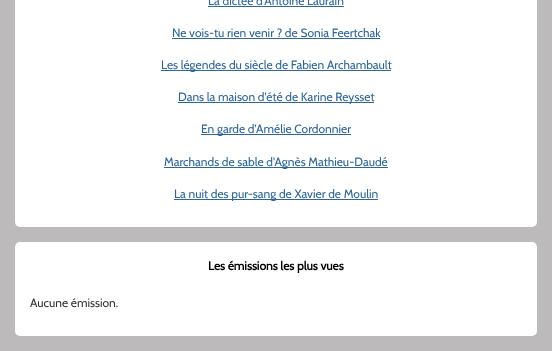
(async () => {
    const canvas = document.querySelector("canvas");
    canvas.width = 552;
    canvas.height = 351;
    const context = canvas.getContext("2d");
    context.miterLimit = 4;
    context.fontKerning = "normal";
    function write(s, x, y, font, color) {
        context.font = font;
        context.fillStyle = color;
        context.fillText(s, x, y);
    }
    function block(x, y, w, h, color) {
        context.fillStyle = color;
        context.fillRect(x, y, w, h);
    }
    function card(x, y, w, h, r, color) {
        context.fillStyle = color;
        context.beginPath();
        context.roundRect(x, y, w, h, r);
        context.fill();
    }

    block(0, 0, 552, 351, "rgb(188, 186, 186)");
    card(15, -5, 522, 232, 5, "rgb(255, 255, 255)");
    write("La dictée d’Antoine Laurain", 208, 5, "12px Cabin", "rgb(45, 102, 154)");
    block(208, 6, 136, 1, "rgb(45, 102, 154)");
    write("Ne vois-tu rien venir ? de Sonia Feertchak", 172, 37, "12px Cabin", "rgb(45, 102, 154)");
    block(172, 38, 208, 1, "rgb(45, 102, 154)");
    block(161, 70, 230, 1, "rgb(45, 102, 154)");
    write("Les légendes du siècle de Fabien Archambault", 161, 69, "12px Cabin", "rgb(45, 102, 154)");
    block(178, 102, 196, 1, "rgb(45, 102, 154)");
    write("Dans la maison d'été de Karine Reysset", 178, 101, "12px Cabin", "rgb(45, 102, 154)");
    block(201, 134, 150, 1, "rgb(45, 102, 154)");
    write("En garde d’Amélie Cordonnier", 201, 133, "12px Cabin", "rgb(45, 102, 154)");
    block(164, 167, 224, 1, "rgb(45, 102, 154)");
    write("Marchands de sable d'Agnès Mathieu-Daudé", 164, 166, "12px Cabin", "rgb(45, 102, 154)");
    block(174, 199, 204, 1, "rgb(45, 102, 154)");
    write("La nuit des pur-sang de Xavier de Moulin", 174, 198, "12px Cabin", "rgb(45, 102, 154)");
    card(15, 242, 522, 94, 5, "rgb(255, 255, 255)");
    write("Les émissions les plus vues", 208, 270, "bold 12px Cabin", "rgb(0, 0, 0)");
    write("Aucune émission.", 30, 307, "12px Cabin", "rgb(51, 51, 51)");
})();
